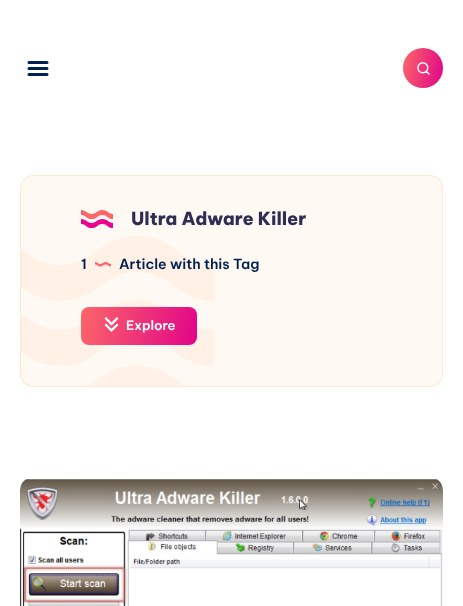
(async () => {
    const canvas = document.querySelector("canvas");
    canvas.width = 463;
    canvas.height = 606;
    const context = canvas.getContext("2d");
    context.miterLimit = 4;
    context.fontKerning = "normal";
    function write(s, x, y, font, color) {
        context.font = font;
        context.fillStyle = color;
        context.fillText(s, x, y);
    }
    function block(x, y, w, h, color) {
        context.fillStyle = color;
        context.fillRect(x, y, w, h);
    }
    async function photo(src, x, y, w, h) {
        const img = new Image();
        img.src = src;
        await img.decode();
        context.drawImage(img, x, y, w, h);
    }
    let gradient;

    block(0, 0, 463, 606, "rgb(255, 255, 255)");
    await photo("media/1.png", 27, 61, 22, 15);
    gradient = context.createLinearGradient(400, 63, 446, 73);
    gradient.addColorStop(0, "rgb(252, 102, 104)");
    gradient.addColorStop(1, "rgb(225, 4, 137)");
    context.fillStyle = gradient;
    context.beginPath();
    context.arc(423, 68, 20, 0, Math.PI * 2);
    context.fill();
    await photo("media/2.png", 417, 62, 13, 13);
    context.fillStyle = "rgb(255, 249, 243)";
    context.beginPath();
    context.roundRect(20.5, 175.5, 422, 211, 12.5);
    context.fill();
    context.strokeStyle = "rgb(255, 231, 210)";
    context.stroke();
    await photo("media/3.png", 81, 210, 32, 18);
    write("Ultra Adware Killer", 131, 225, "800 18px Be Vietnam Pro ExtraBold", "rgb(48, 45, 85)");
    await photo("media/6.png", 21, 236, 193, 150);
    write("1", 81, 269, "600 14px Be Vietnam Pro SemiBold", "rgb(0, 32, 80)");
    await photo("media/4.png", 95, 262, 16, 5);
    write("Article with this Tag", 119, 269, "600 14px Be Vietnam Pro SemiBold", "rgb(0, 32, 80)");
    gradient = context.createLinearGradient(80, 312, 198, 340);
    gradient.addColorStop(0, "rgb(252, 102, 104)");
    gradient.addColorStop(1, "rgb(225, 4, 137)");
    context.fillStyle = gradient;
    context.beginPath();
    context.roundRect(81, 307, 116, 38, 8);
    context.fill();
    await photo("media/5.png", 104, 317, 15, 15);
    write("Explore", 126, 330, "600 13px Be Vietnam Pro SemiBold", "rgb(255, 255, 255)");
    await photo("media/7.png", 20, 478, 423, 128);
})();
